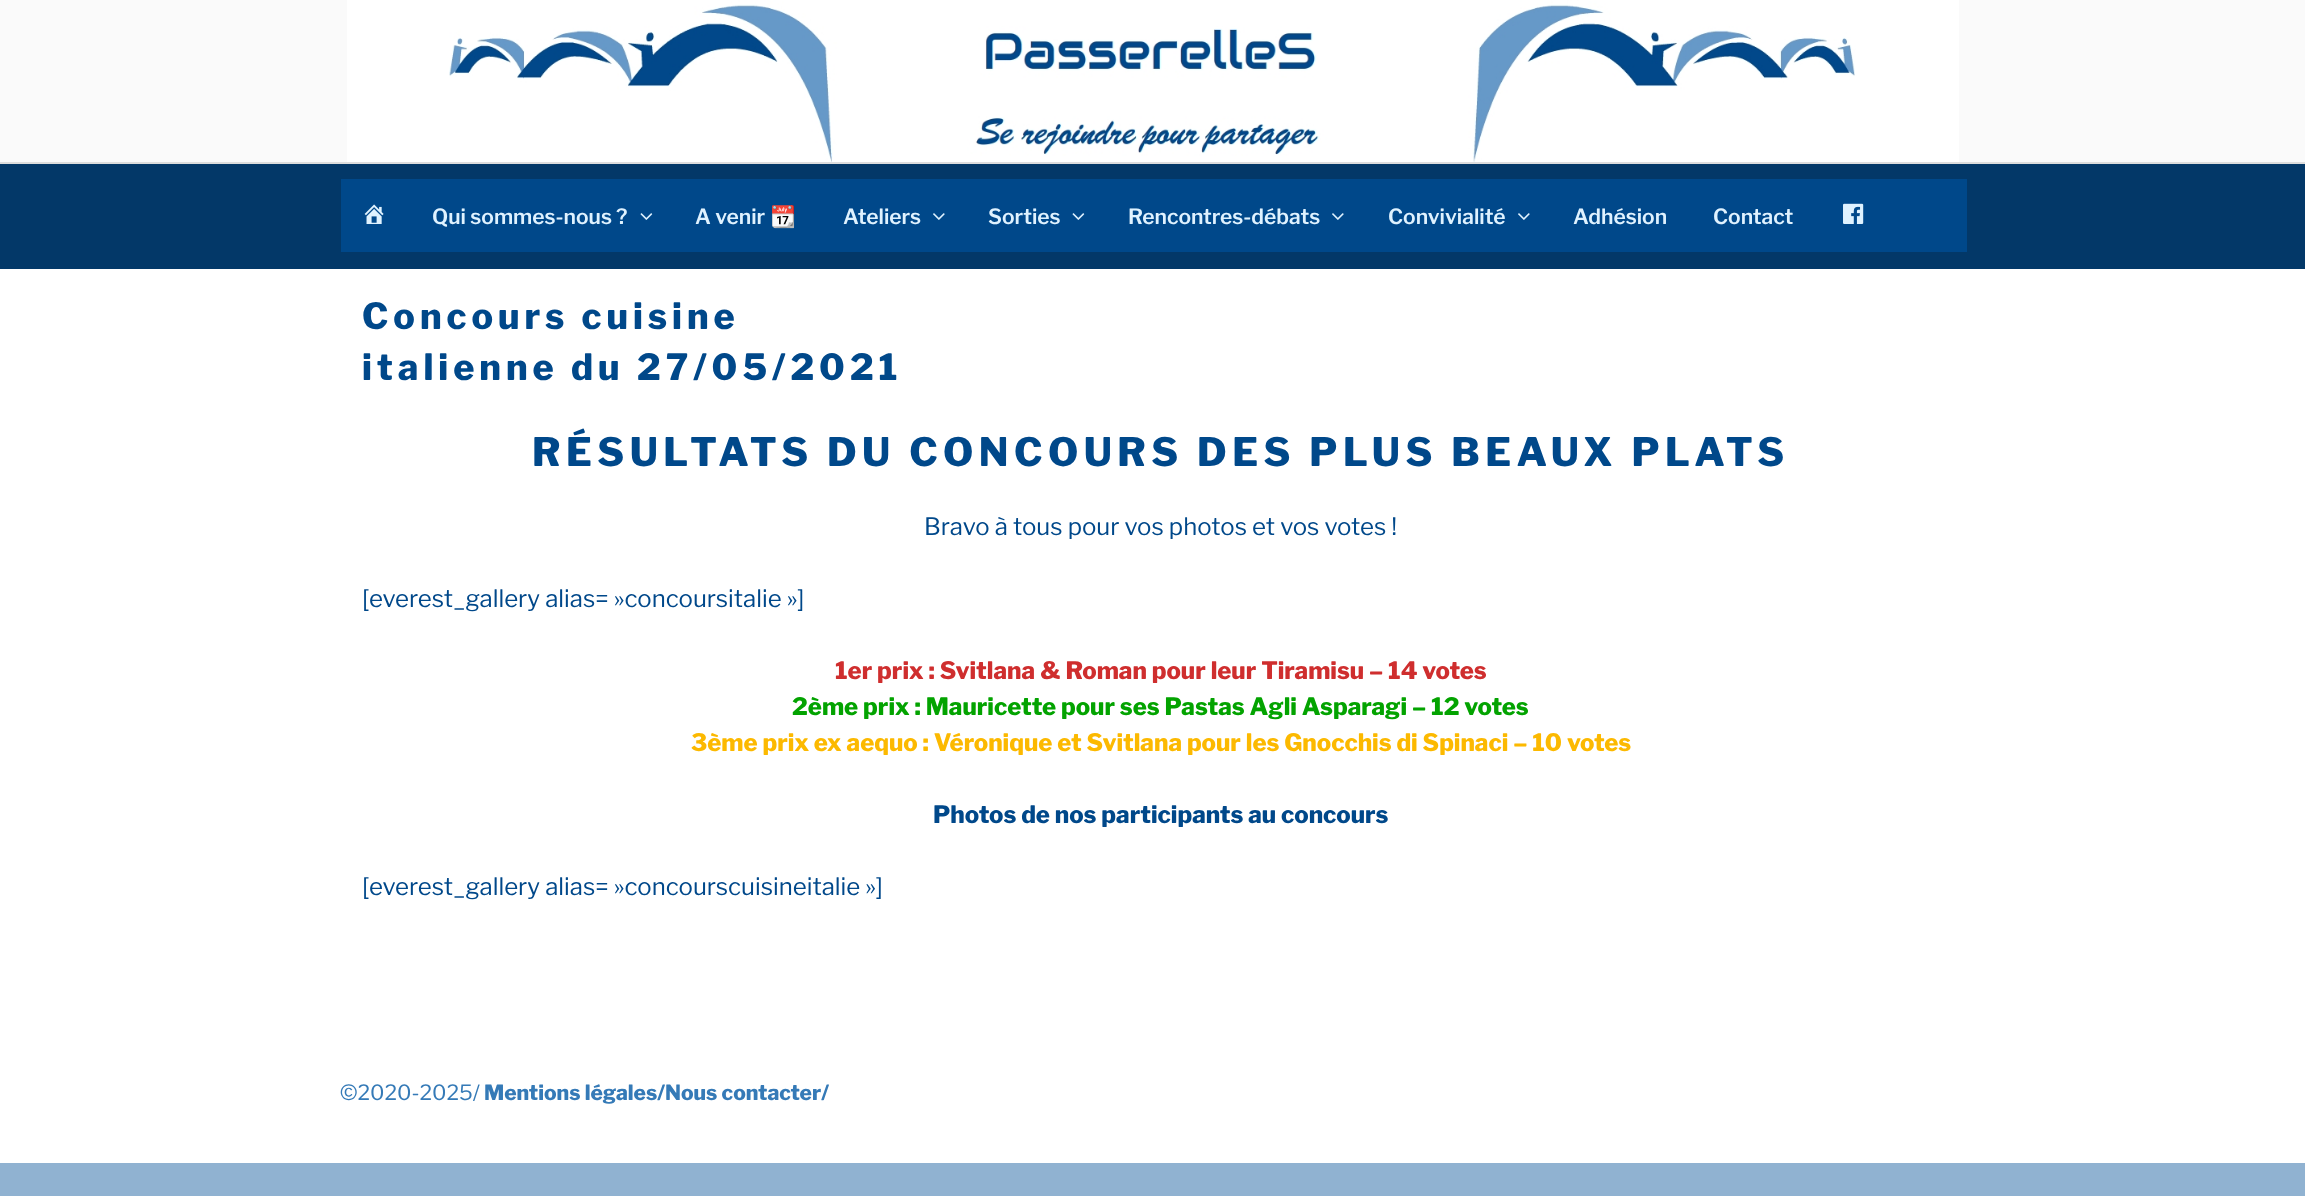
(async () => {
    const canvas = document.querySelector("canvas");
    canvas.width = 2305;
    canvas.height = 1196;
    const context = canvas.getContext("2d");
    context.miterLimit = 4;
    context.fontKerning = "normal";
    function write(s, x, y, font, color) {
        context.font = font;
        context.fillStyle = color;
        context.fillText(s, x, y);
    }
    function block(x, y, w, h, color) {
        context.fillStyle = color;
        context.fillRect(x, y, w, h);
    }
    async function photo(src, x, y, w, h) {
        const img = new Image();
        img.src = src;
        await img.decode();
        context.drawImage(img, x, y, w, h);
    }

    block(0, 0, 2305, 1196, "rgb(144, 178, 209)");
    block(0, 0, 2305, 162, "rgb(250, 250, 250)");
    await photo("media/1.png", 347, 0, 1612, 162);
    block(0, 164, 2305, 105, "rgb(3, 56, 104)");
    block(0, 162, 2305, 2, "rgb(221, 221, 221)");
    block(341, 179, 1626, 73, "rgb(0, 72, 138)");
    await photo("media/2.png", 364, 204, 20, 20);
    write("Qui sommes-nous ?", 432, 224, "100 21px 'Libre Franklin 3'", "rgb(223, 242, 255)");
    await photo("media/3.png", 640, 213, 13, 7);
    write("A venir", 695, 224, "100 21px 'Libre Franklin 3'", "rgb(223, 242, 255)");
    write("📆", 770, 224, "bold 21px Noto Color Emoji", "rgb(223, 242, 255)");
    write("Ateliers", 843, 224, "100 21px 'Libre Franklin 3'", "rgb(223, 242, 255)");
    await photo("media/4.png", 933, 213, 12, 7);
    write("Sorties", 988, 224, "100 21px 'Libre Franklin 3'", "rgb(223, 242, 255)");
    await photo("media/3.png", 1072, 213, 13, 7);
    write("Rencontres-débats", 1128, 224, "100 21px 'Libre Franklin 3'", "rgb(223, 242, 255)");
    await photo("media/4.png", 1332, 213, 12, 7);
    write("Convivialité", 1388, 224, "100 21px 'Libre Franklin 3'", "rgb(223, 242, 255)");
    await photo("media/4.png", 1518, 213, 12, 7);
    write("Adhésion", 1573, 224, "100 21px 'Libre Franklin 3'", "rgb(223, 242, 255)");
    write("Contact", 1713, 224, "100 21px 'Libre Franklin 3'", "rgb(223, 242, 255)");
    await photo("media/5.png", 1843, 203, 21, 21);
    block(0, 269, 2305, 894, "rgb(255, 255, 255)");
    context.letterSpacing = "5px";
    write("Concours cuisine", 362, 329, "100 36px Libre Franklin", "rgb(0, 72, 138)");
    write("italienne du 27/05/2021", 362, 380, "100 36px Libre Franklin", "rgb(0, 72, 138)");
    context.letterSpacing = "5.45px";
    write("RÉSULTATS DU CONCOURS DES PLUS BEAUX PLATS", 532, 466, "100 39px Libre Franklin", "rgb(0, 72, 138)");
    context.letterSpacing = "0px";
    write("Bravo à tous pour vos photos et vos votes !", 924, 535, "100 24px 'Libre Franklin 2'", "rgb(0, 72, 138)");
    write("[everest_gallery alias= »concoursitalie »]", 362, 607, "100 24px 'Libre Franklin 2'", "rgb(0, 72, 138)");
    write("1er prix : Svitlana & Roman pour leur Tiramisu – 14 votes", 835, 679, "100 24px Libre Franklin", "rgb(207, 46, 46)");
    write("2ème prix : Mauricette pour ses Pastas Agli Asparagi – 12 votes", 792, 715, "100 24px Libre Franklin", "rgb(3, 163, 0)");
    write("3ème prix ex aequo : Véronique et Svitlana pour les Gnocchis di Spinaci – 10 votes", 691, 751, "100 24px Libre Franklin", "rgb(252, 185, 0)");
    write("Photos de nos participants au concours", 933, 823, "100 24px Libre Franklin", "rgb(0, 72, 138)");
    write("[everest_gallery alias= »concourscuisineitalie »]", 362, 895, "100 24px 'Libre Franklin 2'", "rgb(0, 72, 138)");
    write("©2020-2025/", 340, 1100, "100 21px 'Libre Franklin 2'", "rgb(53, 122, 183)");
    write("Mentions légales/Nous contacter/", 484, 1100, "100 21px Libre Franklin", "rgb(53, 122, 183)");
})();
